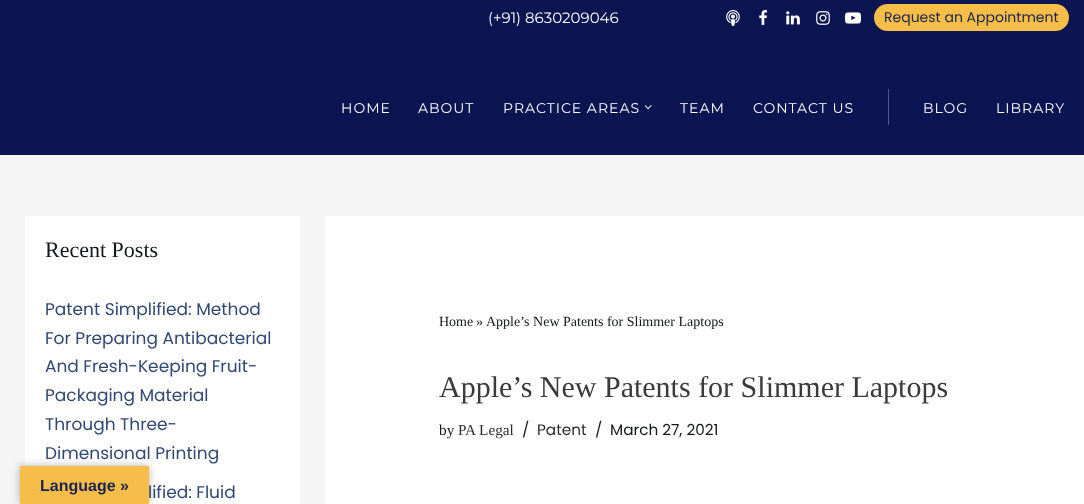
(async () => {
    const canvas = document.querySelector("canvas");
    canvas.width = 1084;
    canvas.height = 504;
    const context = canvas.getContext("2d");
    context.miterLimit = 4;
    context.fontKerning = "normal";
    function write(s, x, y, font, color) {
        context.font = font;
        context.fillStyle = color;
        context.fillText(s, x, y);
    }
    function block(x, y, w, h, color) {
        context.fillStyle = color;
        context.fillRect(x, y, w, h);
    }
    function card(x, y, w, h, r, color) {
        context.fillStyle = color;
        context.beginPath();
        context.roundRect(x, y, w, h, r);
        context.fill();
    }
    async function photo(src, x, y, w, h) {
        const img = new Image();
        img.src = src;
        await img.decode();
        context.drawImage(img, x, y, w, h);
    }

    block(0, 0, 1084, 504, "rgb(245, 245, 245)");
    block(0, 0, 1084, 155, "rgb(10, 21, 82)");
    write("(+91) 8630209046", 488, 23, "15px Montserrat", "rgb(255, 255, 255)");
    await photo("media/1.png", 726, 10, 14, 16);
    await photo("media/2.png", 759, 10, 8, 15);
    await photo("media/3.png", 786, 11, 14, 14);
    await photo("media/4.png", 816, 11, 14, 14);
    await photo("media/5.png", 845, 12, 16, 12);
    card(874, 4, 195, 27, 13.5, "rgb(247, 189, 73)");
    write("Request an Appointment", 884, 22, "14px Poppins", "rgb(26, 36, 81)");
    context.letterSpacing = "1px";
    write("HOME", 341, 113, "14px Montserrat", "rgb(255, 255, 255)");
    write("ABOUT", 418, 113, "14px Montserrat", "rgb(255, 255, 255)");
    write("PRACTICE AREAS", 503, 113, "14px Montserrat", "rgb(255, 255, 255)");
    await photo("media/6.png", 645, 105, 7, 5);
    write("TEAM", 680, 113, "14px Montserrat", "rgb(255, 255, 255)");
    write("CONTACT US", 753, 113, "14px Montserrat", "rgb(255, 255, 255)");
    block(888, 89, 1, 36, "rgb(81, 89, 132)");
    write("BLOG", 923, 113, "14px Montserrat", "rgb(255, 255, 255)");
    write("LIBRARY", 996, 113, "14px Montserrat", "rgb(255, 255, 255)");
    block(25, 216, 275, 288, "rgb(255, 255, 255)");
    context.letterSpacing = "0px";
    write("Recent Posts", 45, 257, "22px Liberation Serif", "rgb(20, 23, 28)");
    write("Patent Simplified: Method", 45, 315, "17px Poppins", "rgb(48, 71, 113)");
    write("For Preparing Antibacterial", 45, 344, "17px Poppins", "rgb(48, 71, 113)");
    write("And Fresh-Keeping Fruit-", 45, 372, "17px Poppins", "rgb(48, 71, 113)");
    write("Packaging Material", 45, 401, "17px Poppins", "rgb(48, 71, 113)");
    write("Through Three-", 45, 430, "17px Poppins", "rgb(48, 71, 113)");
    write("Dimensional Printing", 45, 459, "17px Poppins", "rgb(48, 71, 113)");
    write("lified: Fluid", 148, 498, "17px Poppins", "rgb(48, 71, 113)");
    block(325, 216, 759, 288, "rgb(255, 255, 255)");
    write("Home", 439, 326, "14px Liberation Serif", "rgb(20, 23, 28)");
    write("»", 476, 326, "14px Liberation Serif", "rgb(20, 23, 28)");
    write("Apple’s New Patents for Slimmer Laptops", 486, 326, "14px Liberation Serif", "rgb(20, 23, 28)");
    write("Apple’s New Patents for Slimmer Laptops", 439, 397, "30px Liberation Serif", "rgb(58, 58, 58)");
    write("by", 439, 435, "15.25px Liberation Serif", "rgb(20, 23, 28)");
    write("PA Legal", 458, 435, "15.25px Liberation Serif", "rgb(43, 43, 43)");
    write("/", 522, 435, "15.25px Poppins", "rgb(20, 23, 28)");
    write("Patent", 537, 435, "15.25px Poppins", "rgb(43, 43, 43)");
    write("/", 595, 435, "15.25px Poppins", "rgb(20, 23, 28)");
    write("March 27, 2021", 610, 435, "15.25px Poppins", "rgb(20, 23, 28)");
    context.fillStyle = "rgba(0, 0, 0, 0.3)";
    context.filter = "blur(4.5px)";
    context.beginPath();
    context.rect(20, 466, 129, 38);
    context.fill();
    context.filter = "none";
    block(20, 466, 129, 38, "rgb(247, 189, 73)");
    write("Language »", 40, 491, "bold 16px Liberation Sans", "rgb(26, 36, 81)");
})();
